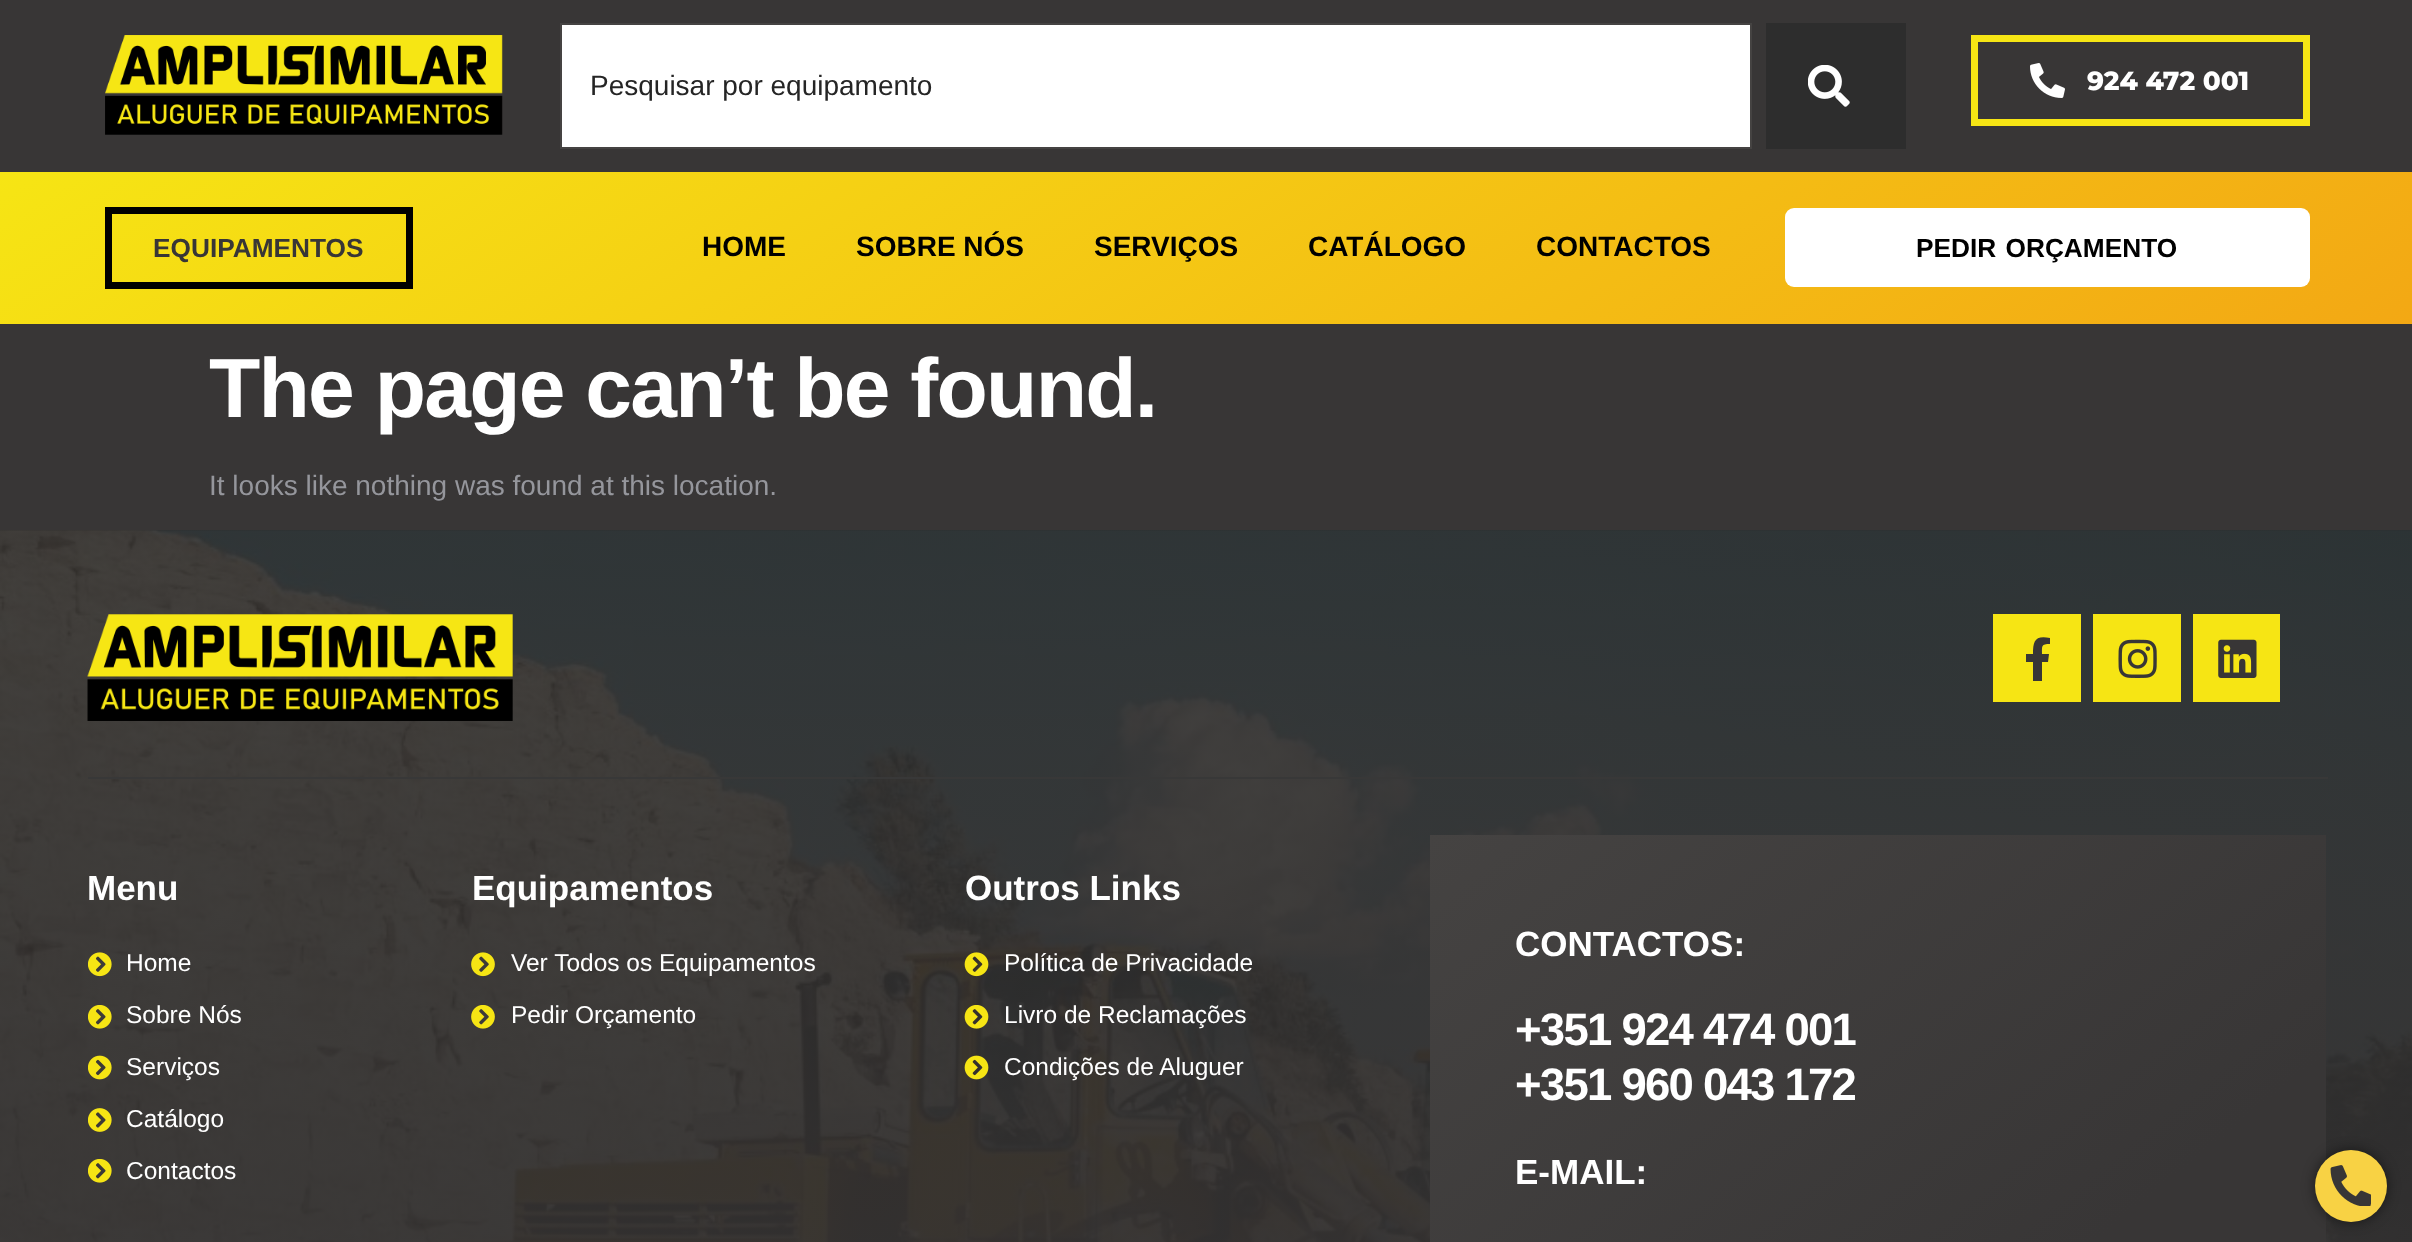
(async () => {
    const canvas = document.querySelector("canvas");
    canvas.width = 2412;
    canvas.height = 1242;
    const context = canvas.getContext("2d");
    context.miterLimit = 4;
    context.fontKerning = "normal";
    function write(s, x, y, font, color) {
        context.font = font;
        context.fillStyle = color;
        context.fillText(s, x, y);
    }
    function block(x, y, w, h, color) {
        context.fillStyle = color;
        context.fillRect(x, y, w, h);
    }
    function card(x, y, w, h, r, color) {
        context.fillStyle = color;
        context.beginPath();
        context.roundRect(x, y, w, h, r);
        context.fill();
    }
    async function photo(src, x, y, w, h) {
        const img = new Image();
        img.src = src;
        await img.decode();
        context.drawImage(img, x, y, w, h);
    }
    let gradient;

    block(0, 0, 2412, 1242, "rgb(56, 54, 54)");
    await photo("media/1.png", 105, 35, 398, 100);
    context.fillStyle = "rgb(255, 255, 255)";
    context.beginPath();
    context.rect(561, 24, 1190, 124);
    context.fill();
    context.strokeStyle = "rgb(69, 67, 66)";
    context.lineWidth = 2;
    context.stroke();
    write("Pesquisar por equipamento", 590, 95, "28px Liberation Sans", "rgb(37, 37, 37)");
    block(1766, 23, 140, 126, "rgb(45, 45, 45)");
    await photo("media/2.png", 1808, 65, 42, 42);
    context.strokeStyle = "rgb(246, 229, 20)";
    context.lineWidth = 7;
    context.strokeRect(1974.5, 38.5, 332, 84);
    await photo("media/3.png", 2030, 63, 35, 35);
    write("924 472 001", 2087, 90, "800 26.25px Montserrat", "rgb(255, 255, 255)");
    gradient = context.createLinearGradient(834, -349, 1580, 845);
    gradient.addColorStop(0, "rgb(246, 229, 20)");
    gradient.addColorStop(1, "rgb(243, 168, 20)");
    context.fillStyle = gradient;
    context.fillRect(0, 172, 2412, 152);
    context.strokeStyle = "rgb(0, 0, 0)";
    context.strokeRect(108.5, 210.5, 301, 75);
    write("EQUIPAMENTOS", 153, 257, "bold 26.25px Liberation Sans", "rgb(56, 54, 54)");
    write("HOME", 702, 256, "bold 28px Liberation Sans", "rgb(0, 0, 0)");
    write("SOBRE NÓS", 856, 256, "bold 28px Liberation Sans", "rgb(0, 0, 0)");
    write("SERVIÇOS", 1094, 256, "bold 28px Liberation Sans", "rgb(0, 0, 0)");
    write("CATÁLOGO", 1308, 256, "bold 28px Liberation Sans", "rgb(0, 0, 0)");
    write("CONTACTOS", 1536, 256, "bold 28px Liberation Sans", "rgb(0, 0, 0)");
    card(1785, 208, 525, 79, 9, "rgb(255, 255, 255)");
    context.wordSpacing = "2px";
    write("PEDIR ORÇAMENTO", 1916, 257, "bold 26.25px Liberation Sans", "rgb(0, 0, 0)");
    context.letterSpacing = "-1.75px";
    context.wordSpacing = "0px";
    write("The page can’t be found.", 209, 417, "bold 84px Liberation Sans", "rgb(255, 255, 255)");
    context.letterSpacing = "0px";
    write("It looks like nothing was found at this location.", 209, 495, "28px Liberation Sans", "rgb(149, 150, 156)");
    await photo("media/4.png", 0, 530, 2412, 712);
    gradient = context.createLinearGradient(1207, 530, 1207, 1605);
    gradient.addColorStop(0.04, "rgba(41, 41, 41, 0.88)");
    gradient.addColorStop(1, "rgb(56, 54, 54)");
    context.fillStyle = gradient;
    context.fillRect(0, 530, 2412, 712);
    block(88, 777, 2240, 2, "rgb(56, 56, 56)");
    await photo("media/5.png", 87, 614, 426, 107);
    block(1993, 614, 88, 88, "rgb(246, 229, 20)");
    context.fillStyle = "rgb(56, 54, 54)";
    context.beginPath();
    context.moveTo(2048, 662);
    context.lineTo(2049, 654);
    context.lineTo(2042, 654);
    context.bezierCurveTo(2042, 646, 2041, 644, 2050, 644);
    context.lineTo(2050, 638);
    context.bezierCurveTo(2035, 635, 2033, 641, 2033, 654);
    context.lineTo(2026, 654);
    context.lineTo(2026, 662);
    context.lineTo(2033, 662);
    context.lineTo(2033, 681);
    context.lineTo(2042, 681);
    context.lineTo(2042, 662);
    context.closePath();
    context.fill();
    block(2093, 614, 88, 88, "rgb(246, 229, 20)");
    await photo("media/6.png", 2118, 639, 39, 39);
    block(2193, 614, 87, 88, "rgb(246, 229, 20)");
    await photo("media/7.png", 2218, 639, 39, 39);
    write("Menu", 87, 900, "bold 35px Liberation Sans", "rgb(255, 255, 255)");
    await photo("media/8.png", 88, 952, 24, 25);
    write("Home", 126, 971, "24.5px Liberation Sans", "rgb(255, 255, 255)");
    await photo("media/9.png", 88, 1005, 24, 24);
    write("Sobre Nós", 126, 1023, "24.5px Liberation Sans", "rgb(255, 255, 255)");
    await photo("media/10.png", 88, 1055, 24, 25);
    write("Serviços", 126, 1075, "24.5px Liberation Sans", "rgb(255, 255, 255)");
    await photo("media/11.png", 88, 1108, 24, 24);
    write("Catálogo", 126, 1127, "24.5px Liberation Sans", "rgb(255, 255, 255)");
    await photo("media/12.png", 88, 1159, 24, 24);
    write("Contactos", 126, 1179, "24.5px Liberation Sans", "rgb(255, 255, 255)");
    write("Equipamentos", 472, 900, "bold 35px Liberation Sans", "rgb(255, 255, 255)");
    await photo("media/13.png", 471, 952, 24, 25);
    write("Ver Todos os Equipamentos", 511, 971, "24.5px Liberation Sans", "rgb(255, 255, 255)");
    await photo("media/14.png", 471, 1005, 24, 24);
    write("Pedir Orçamento", 511, 1023, "24.5px Liberation Sans", "rgb(255, 255, 255)");
    write("Outros Links", 965, 900, "bold 35px Liberation Sans", "rgb(255, 255, 255)");
    await photo("media/15.png", 964, 952, 25, 25);
    write("Política de Privacidade", 1004, 971, "24.5px Liberation Sans", "rgb(255, 255, 255)");
    await photo("media/16.png", 964, 1005, 25, 24);
    write("Livro de Reclamações", 1004, 1023, "24.5px Liberation Sans", "rgb(255, 255, 255)");
    await photo("media/17.png", 964, 1055, 25, 25);
    write("Condições de Aluguer", 1004, 1075, "24.5px Liberation Sans", "rgb(255, 255, 255)");
    gradient = context.createLinearGradient(1569, 722, 2186, 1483);
    gradient.addColorStop(0, "rgb(69, 67, 66)");
    gradient.addColorStop(0.75, "rgb(56, 54, 54)");
    context.fillStyle = gradient;
    context.fillRect(1430, 835, 896, 407);
    write("CONTACTOS:", 1515, 956, "bold 35px Liberation Sans", "rgb(255, 255, 255)");
    context.letterSpacing = "-1.75px";
    write("+351 924 474 001", 1515, 1045, "bold 45.5px Liberation Sans", "rgb(255, 255, 255)");
    write("+351 960 043 172", 1515, 1100, "bold 45.5px Liberation Sans", "rgb(255, 255, 255)");
    context.letterSpacing = "0px";
    write("E-MAIL:", 1515, 1184, "bold 35px Liberation Sans", "rgb(255, 255, 255)");
    context.fillStyle = "rgba(0, 0, 0, 0.5)";
    context.filter = "blur(6.5px)";
    context.beginPath();
    context.roundRect(2315, 1150, 72, 72, 36);
    context.fill();
    context.filter = "none";
    context.fillStyle = "rgb(248, 210, 68)";
    context.beginPath();
    context.arc(2351, 1186, 36, 0, Math.PI * 2);
    context.fill();
    await photo("media/18.png", 2330, 1165, 41, 41);
})();
